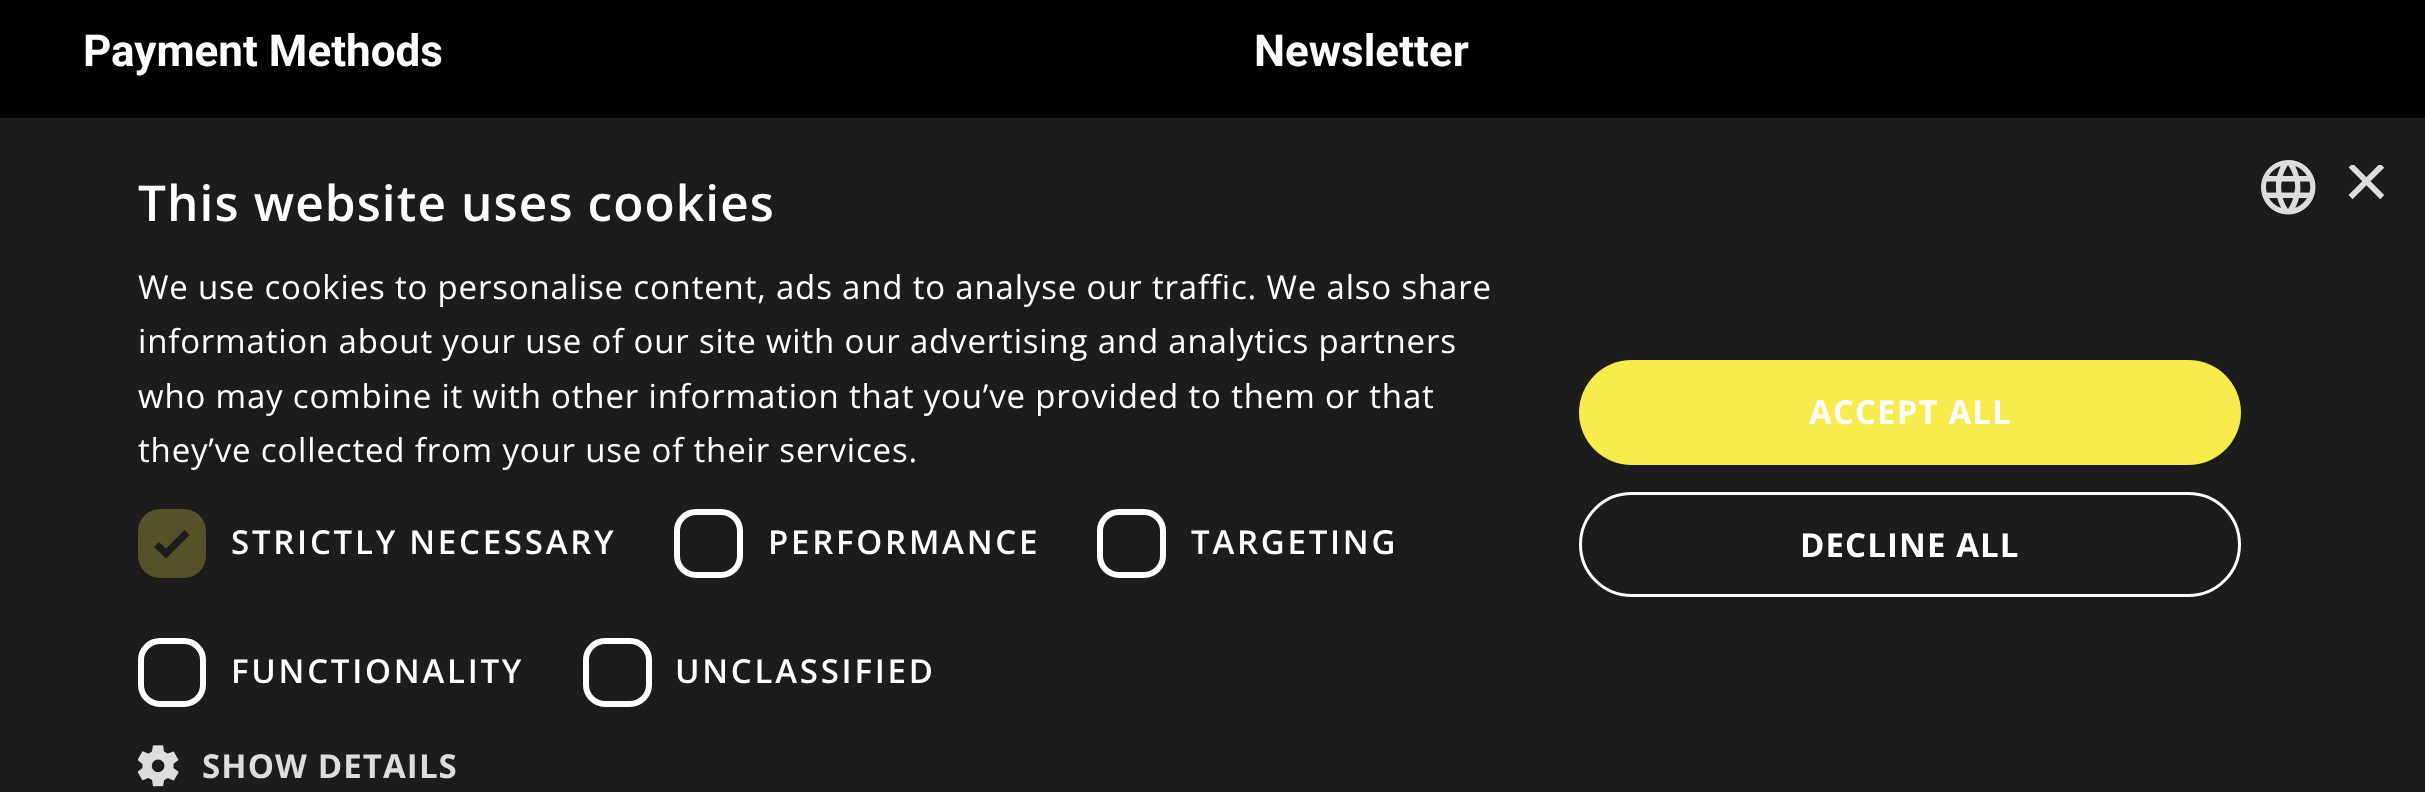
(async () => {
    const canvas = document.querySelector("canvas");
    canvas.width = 2425;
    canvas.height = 792;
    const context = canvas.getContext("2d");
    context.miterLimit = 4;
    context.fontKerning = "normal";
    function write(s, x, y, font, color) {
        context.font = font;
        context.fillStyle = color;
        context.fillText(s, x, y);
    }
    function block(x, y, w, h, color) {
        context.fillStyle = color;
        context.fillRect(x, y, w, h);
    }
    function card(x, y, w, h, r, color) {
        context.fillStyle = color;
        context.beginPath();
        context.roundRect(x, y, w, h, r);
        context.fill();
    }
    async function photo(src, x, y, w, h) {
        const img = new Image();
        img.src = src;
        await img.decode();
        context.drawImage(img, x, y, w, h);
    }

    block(0, 0, 2425, 792, "rgb(0, 0, 0)");
    write("Payment Methods", 83, 66, "bold 44px Roboto", "rgb(255, 255, 255)");
    write("Newsletter", 1254, 66, "bold 44px Roboto", "rgb(255, 255, 255)");
    block(0, 118, 2425, 674, "rgb(28, 28, 28)");
    context.letterSpacing = "1.1px";
    write("This website uses cookies", 138, 221, "600 49.5px Open Sans", "rgb(255, 255, 255)");
    context.letterSpacing = "0.82px";
    write("We use cookies to personalise content, ads and to analyse our traffic. We also share", 138, 299, "33px Open Sans", "rgb(255, 255, 255)");
    write("information about your use of our site with our advertising and analytics partners", 138, 353, "33px Open Sans", "rgb(255, 255, 255)");
    write("who may combine it with other information that you’ve provided to them or that", 138, 408, "33px Open Sans", "rgb(255, 255, 255)");
    write("they’ve collected from your use of their services.", 138, 462, "33px Open Sans", "rgb(255, 255, 255)");
    card(138, 509, 68, 69, 22, "rgb(85, 82, 41)");
    context.beginPath();
    context.moveTo(156.5, 544.5);
    context.lineTo(166, 553.5);
    context.lineTo(187, 532.5);
    context.strokeStyle = "rgb(28, 28, 28)";
    context.lineWidth = 7.2;
    context.stroke();
    context.letterSpacing = "2.75px";
    write("STRICTLY NECESSARY", 231, 554, "600 33px Open Sans", "rgb(255, 255, 255)");
    context.beginPath();
    context.roundRect(677, 512, 63, 63, 19);
    context.strokeStyle = "rgb(255, 255, 255)";
    context.lineWidth = 6;
    context.stroke();
    write("PERFORMANCE", 768, 554, "600 33px Open Sans", "rgb(255, 255, 255)");
    context.beginPath();
    context.roundRect(1100, 512, 63, 63, 19);
    context.stroke();
    write("TARGETING", 1191, 554, "600 33px Open Sans", "rgb(255, 255, 255)");
    context.beginPath();
    context.roundRect(141, 641, 62, 63, 19);
    context.stroke();
    write("FUNCTIONALITY", 231, 683, "600 33px Open Sans", "rgb(255, 255, 255)");
    context.beginPath();
    context.roundRect(586, 641, 63, 63, 19);
    context.stroke();
    write("UNCLASSIFIED", 675, 683, "600 33px Open Sans", "rgb(255, 255, 255)");
    await photo("media/1.png", 138, 745, 41, 42);
    context.letterSpacing = "1.1px";
    write("SHOW DETAILS", 202, 778, "bold 33px Open Sans", "rgb(221, 221, 221)");
    card(1579, 360, 662, 105, 52.5, "rgb(248, 235, 77)");
    write("ACCEPT ALL", 1809, 424, "bold 33px Open Sans", "rgb(255, 255, 255)");
    context.beginPath();
    context.roundRect(1580.5, 493.5, 659, 102, 51);
    context.lineWidth = 3;
    context.stroke();
    write("DECLINE ALL", 1800, 557, "bold 33px Open Sans", "rgb(255, 255, 255)");
    await photo("media/2.png", 2261, 160, 55, 55);
    context.save();
    context.beginPath();
    context.rect(2343, 165, 41, 41);
    context.clip();
    context.letterSpacing = "0px";
    write("×", 2343, 208, "80px Liberation Sans", "rgb(221, 221, 221)");
    context.restore();
})();
